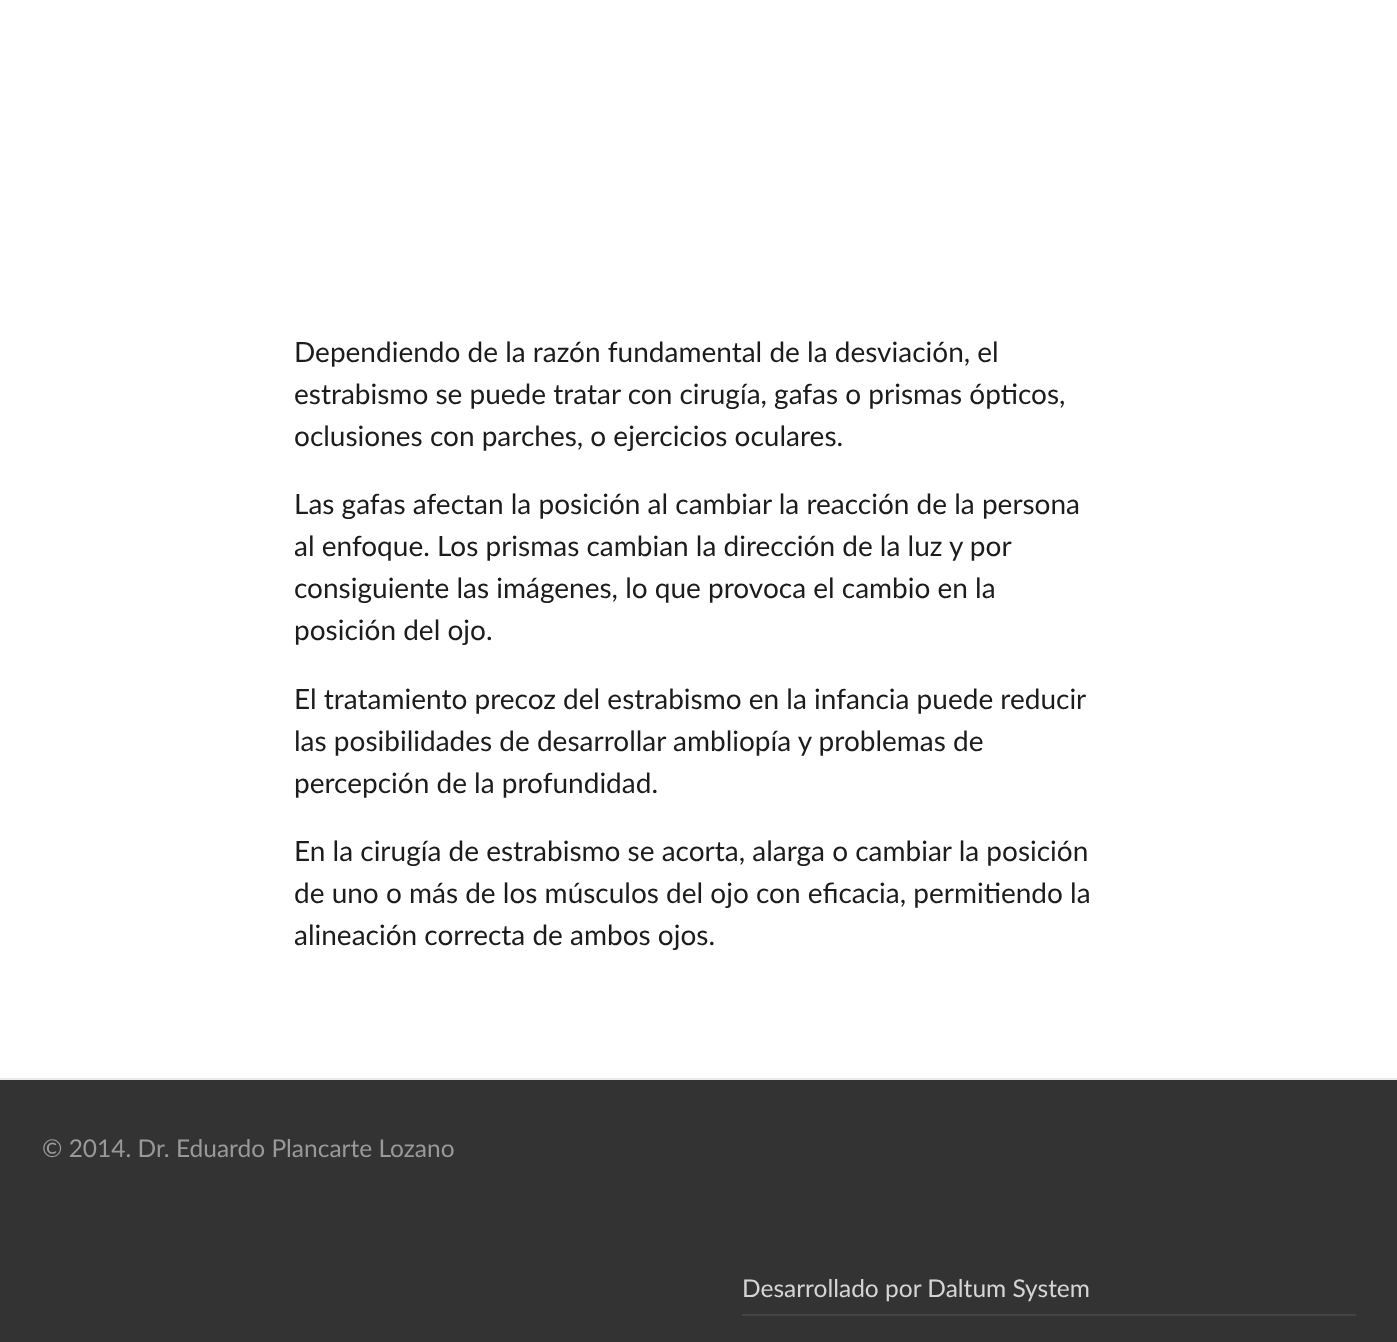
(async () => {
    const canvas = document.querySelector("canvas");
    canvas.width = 1397;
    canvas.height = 1342;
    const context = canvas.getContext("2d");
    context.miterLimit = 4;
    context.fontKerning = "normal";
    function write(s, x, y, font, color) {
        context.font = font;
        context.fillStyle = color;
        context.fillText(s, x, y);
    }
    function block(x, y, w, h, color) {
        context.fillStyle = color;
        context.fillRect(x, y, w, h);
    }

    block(0, 0, 1397, 1342, "rgb(255, 255, 255)");
    write("Dependiendo de la razón fundamental de la desviación, el", 294, 362, "28px Lato", "rgb(28, 28, 28)");
    write("estrabismo se puede tratar con cirugía, gafas o prismas ópticos,", 294, 404, "28px Lato", "rgb(28, 28, 28)");
    write("oclusiones con parches, o ejercicios oculares.", 294, 446, "28px Lato", "rgb(28, 28, 28)");
    write("Las gafas afectan la posición al cambiar la reacción de la persona", 294, 514, "28px Lato", "rgb(28, 28, 28)");
    write("al enfoque. Los prismas cambian la dirección de la luz y por", 294, 556, "28px Lato", "rgb(28, 28, 28)");
    write("consiguiente las imágenes, lo que provoca el cambio en la", 294, 598, "28px Lato", "rgb(28, 28, 28)");
    write("posición del ojo.", 294, 640, "28px Lato", "rgb(28, 28, 28)");
    write("El tratamiento precoz del estrabismo en la infancia puede reducir", 294, 709, "28px Lato", "rgb(28, 28, 28)");
    write("las posibilidades de desarrollar ambliopía y problemas de", 294, 751, "28px Lato", "rgb(28, 28, 28)");
    write("percepción de la profundidad.", 294, 793, "28px Lato", "rgb(28, 28, 28)");
    write("En la cirugía de estrabismo se acorta, alarga o cambiar la posición", 294, 861, "28px Lato", "rgb(28, 28, 28)");
    write("de uno o más de los músculos del ojo con eficacia, permitiendo la", 294, 903, "28px Lato", "rgb(28, 28, 28)");
    write("alineación correcta de ambos ojos.", 294, 945, "28px Lato", "rgb(28, 28, 28)");
    block(0, 1080, 1397, 262, "rgb(51, 51, 51)");
    block(0, 1078, 1397, 2, "rgb(234, 234, 234)");
    write("© 2014. Dr. Eduardo Plancarte Lozano", 42, 1157, "24.5px Lato", "rgb(153, 153, 153)");
    block(742, 1314, 614, 2, "rgb(68, 68, 68)");
    write("Desarrollado por Daltum System", 742, 1297, "24.5px Lato", "rgb(213, 213, 213)");
})();
